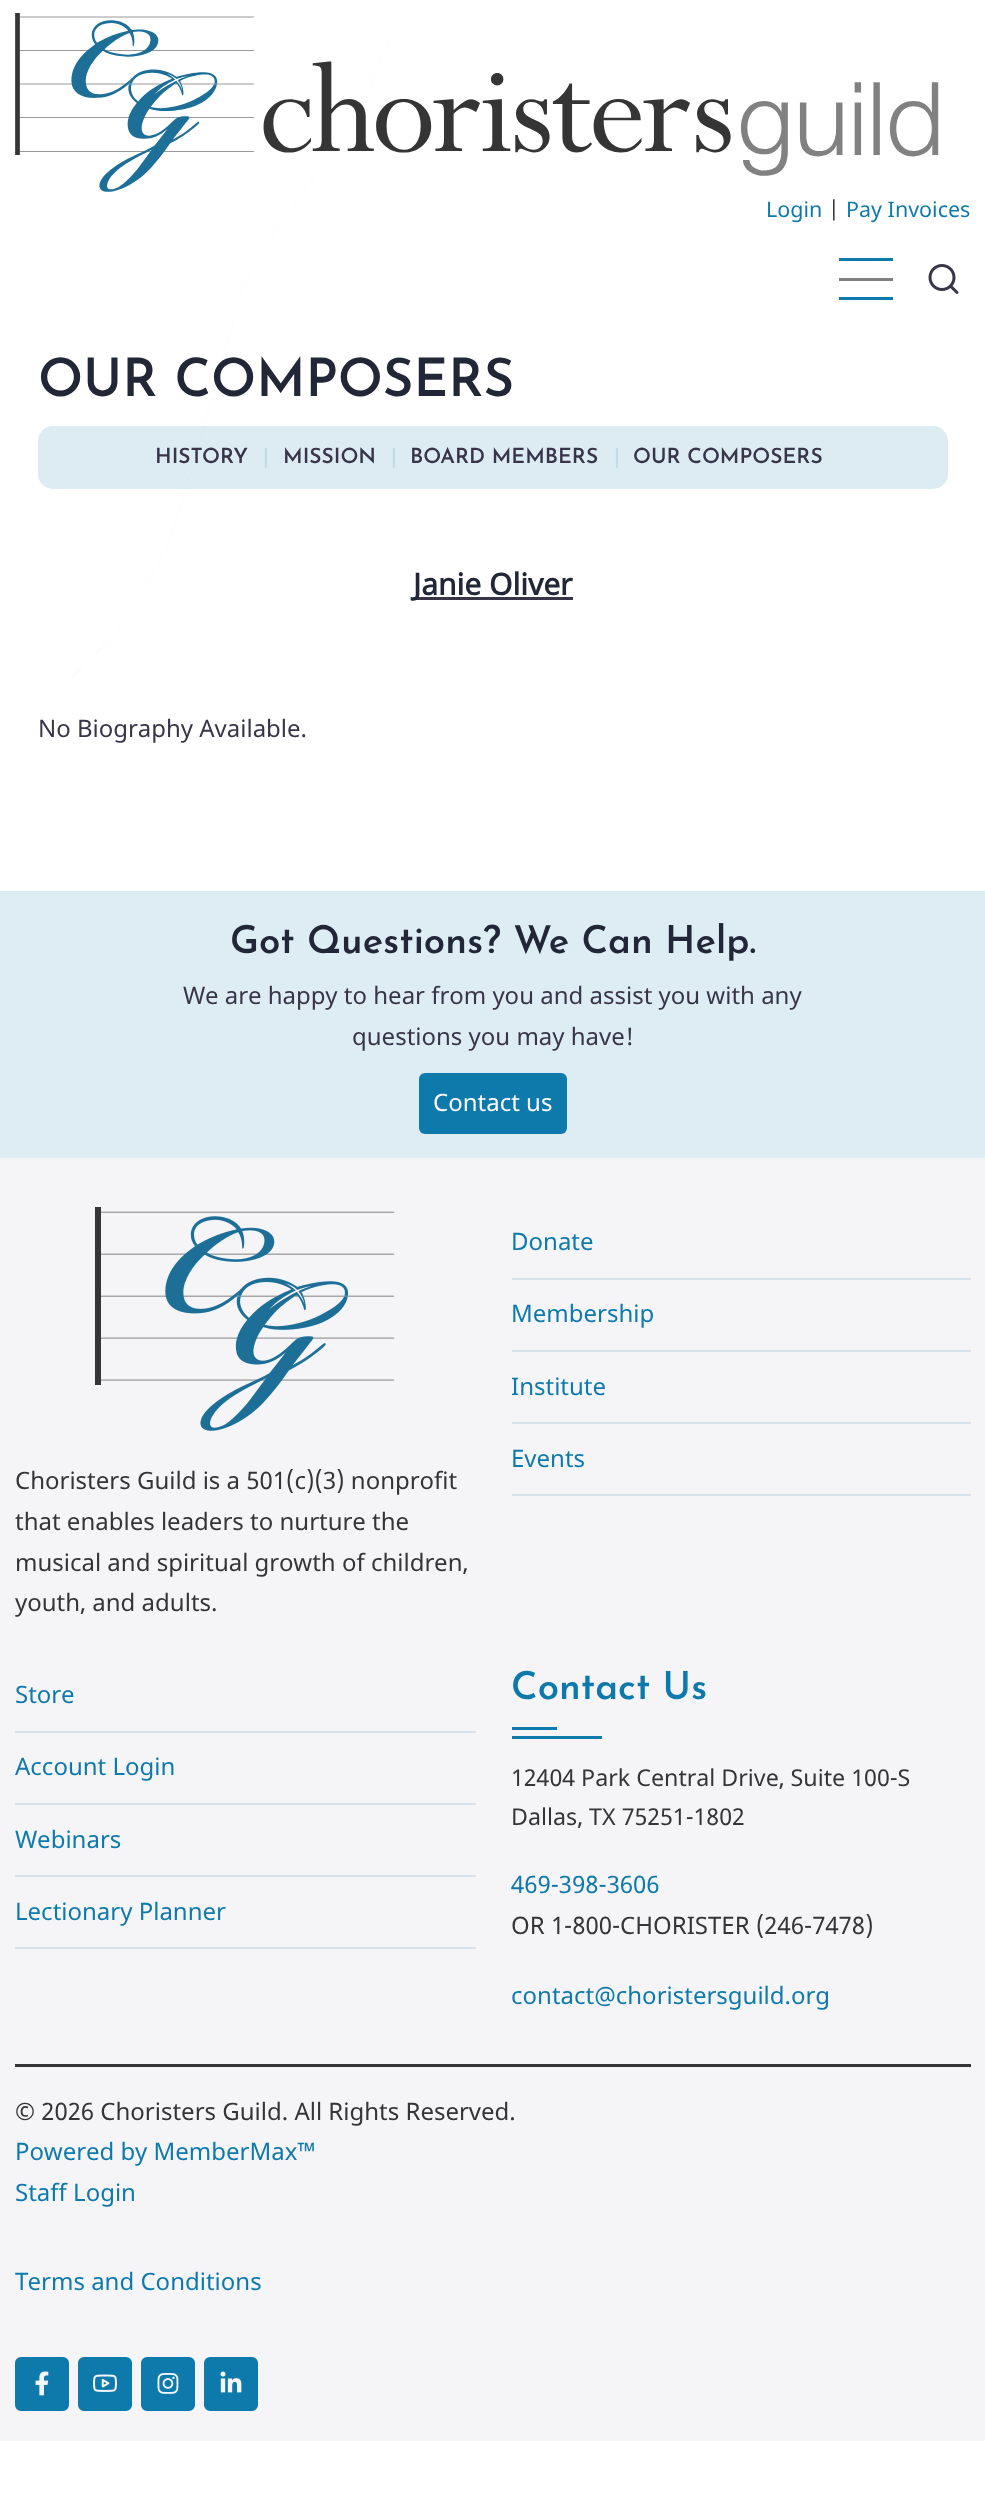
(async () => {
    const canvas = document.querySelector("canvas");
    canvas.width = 985;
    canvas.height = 2520;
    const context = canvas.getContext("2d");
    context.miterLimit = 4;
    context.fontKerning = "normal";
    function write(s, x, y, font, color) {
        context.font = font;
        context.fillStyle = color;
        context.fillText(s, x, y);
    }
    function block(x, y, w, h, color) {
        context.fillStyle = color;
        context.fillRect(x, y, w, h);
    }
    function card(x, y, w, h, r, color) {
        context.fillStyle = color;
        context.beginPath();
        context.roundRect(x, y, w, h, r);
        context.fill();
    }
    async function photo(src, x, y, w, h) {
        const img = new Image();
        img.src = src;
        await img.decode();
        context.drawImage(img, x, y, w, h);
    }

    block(0, 0, 985, 2520, "rgb(255, 255, 255)");
    await photo("media/1.png", 6, 26, 388, 699);
    await photo("media/2.png", 15, 13, 924, 179);
    write("Login", 766, 217, "21.5px Noto Sans", "rgb(14, 121, 171)");
    write("|", 828, 217, "21.5px Noto Sans", "rgb(56, 53, 73)");
    write("Pay Invoices", 846, 217, "21.5px Noto Sans", "rgb(14, 121, 171)");
    block(839, 258, 54, 3, "rgb(14, 121, 171)");
    block(839, 278, 54, 3, "rgb(128, 129, 128)");
    block(839, 297, 54, 3, "rgb(14, 121, 171)");
    await photo("media/3.png", 928, 264, 31, 30);
    write("OUR COMPOSERS", 38, 396, "100 52.75px Josefin Sans", "rgb(33, 39, 54)");
    card(38, 426, 910, 63, 15, "rgba(14, 121, 171, 0.14)");
    write("HISTORY", 155, 463, "100 21px Josefin Sans", "rgb(56, 53, 73)");
    write("|", 263, 463, "100 21px Josefin Sans", "rgb(192, 220, 233)");
    write("MISSION", 283, 463, "100 21px Josefin Sans", "rgb(56, 53, 73)");
    write("|", 391, 463, "100 21px Josefin Sans", "rgb(192, 220, 233)");
    write("BOARD MEMBERS", 410, 463, "100 21px Josefin Sans", "rgb(56, 53, 73)");
    write("|", 614, 463, "100 21px Josefin Sans", "rgb(192, 220, 233)");
    write("OUR COMPOSERS", 633, 463, "100 21px Josefin Sans", "rgb(56, 53, 73)");
    block(413, 597, 160, 3, "rgb(56, 53, 73)");
    write("Janie Oliver", 413, 595, "bold 30px Noto Sans", "rgb(33, 39, 54)");
    write("No Biography Available.", 38, 737, "24px Noto Sans", "rgb(56, 53, 73)");
    block(0, 891, 985, 267, "rgb(222, 237, 244)");
    write("Got Questions? We Can Help.", 230, 953, "100 38.4px Josefin Sans", "rgb(33, 39, 54)");
    write("We are happy to hear from you and assist you with any", 183, 1004, "24px Noto Sans", "rgb(56, 53, 73)");
    write("questions you may have!", 352, 1045, "24px Noto Sans", "rgb(56, 53, 73)");
    card(419, 1073, 148, 61, 6, "rgb(14, 121, 171)");
    write("Contact us", 433, 1111, "24px Noto Sans", "rgb(255, 255, 255)");
    block(0, 1158, 985, 1283, "rgb(245, 245, 247)");
    block(512, 1278, 459, 2, "rgb(213, 228, 236)");
    write("Donate", 511, 1250, "24px Noto Sans", "rgb(14, 121, 171)");
    block(512, 1350, 459, 2, "rgb(213, 228, 236)");
    write("Membership", 511, 1322, "24px Noto Sans", "rgb(14, 121, 171)");
    block(512, 1422, 459, 2, "rgb(213, 228, 236)");
    write("Institute", 511, 1395, "24px Noto Sans", "rgb(14, 121, 171)");
    block(512, 1494, 459, 2, "rgb(213, 228, 236)");
    write("Events", 511, 1467, "24px Noto Sans", "rgb(14, 121, 171)");
    await photo("media/4.png", 95, 1207, 300, 224);
    write("Choristers Guild is a 501(c)(3) nonprofit", 15, 1489, "24px Noto Sans", "rgb(52, 53, 52)");
    write("that enables leaders to nurture the", 15, 1530, "24px Noto Sans", "rgb(52, 53, 52)");
    write("musical and spiritual growth of children,", 15, 1571, "24px Noto Sans", "rgb(52, 53, 52)");
    write("youth, and adults.", 15, 1611, "24px Noto Sans", "rgb(52, 53, 52)");
    block(15, 1731, 461, 2, "rgb(213, 228, 236)");
    write("Store", 15, 1703, "24px Noto Sans", "rgb(14, 121, 171)");
    block(15, 1803, 461, 2, "rgb(213, 228, 236)");
    write("Account Login", 15, 1775, "24px Noto Sans", "rgb(14, 121, 171)");
    block(15, 1875, 461, 2, "rgb(213, 228, 236)");
    write("Webinars", 15, 1848, "24px Noto Sans", "rgb(14, 121, 171)");
    block(15, 1947, 461, 2, "rgb(213, 228, 236)");
    write("Lectionary Planner", 15, 1920, "24px Noto Sans", "rgb(14, 121, 171)");
    write("Contact Us", 511, 1699, "100 38.4px Josefin Sans", "rgb(14, 121, 171)");
    block(512, 1727, 45, 3, "rgb(14, 121, 171)");
    block(512, 1736, 90, 3, "rgb(14, 121, 171)");
    write("12404 Park Central Drive, Suite 100-S", 511, 1786, "23.25px Noto Sans", "rgb(52, 53, 52)");
    write("Dallas, TX 75251-1802", 511, 1825, "23.25px Noto Sans", "rgb(52, 53, 52)");
    write("469-398-3606", 511, 1893, "24px Noto Sans", "rgb(14, 121, 171)");
    write("OR 1-800-CHORISTER (246-7478)", 511, 1934, "24px Noto Sans", "rgb(52, 53, 52)");
    write("contact@choristersguild.org", 511, 2004, "24px Noto Sans", "rgb(14, 121, 171)");
    block(15, 2064, 956, 3, "rgb(52, 53, 52)");
    write("© 2026 Choristers Guild. All Rights Reserved.", 15, 2120, "24px Noto Sans", "rgb(52, 53, 52)");
    write("Powered by MemberMax™", 15, 2160, "24px Noto Sans", "rgb(14, 121, 171)");
    write("Staff Login", 15, 2201, "24px Noto Sans", "rgb(14, 121, 171)");
    write("Terms and Conditions", 15, 2290, "24px Noto Sans", "rgb(14, 121, 171)");
    context.beginPath();
    context.roundRect(16.5, 2358.5, 51, 51, 4.5);
    context.fill();
    context.strokeStyle = "rgb(14, 121, 171)";
    context.lineWidth = 3;
    context.stroke();
    await photo("media/5.png", 35, 2371, 14, 25);
    context.beginPath();
    context.roundRect(79.5, 2358.5, 51, 51, 4.5);
    context.fill();
    context.stroke();
    await photo("media/6.png", 93, 2374, 24, 18);
    context.beginPath();
    context.roundRect(142.5, 2358.5, 51, 51, 4.5);
    context.fill();
    context.stroke();
    await photo("media/7.png", 157, 2373, 22, 21);
    context.beginPath();
    context.roundRect(205.5, 2358.5, 51, 51, 4.5);
    context.fill();
    context.stroke();
    await photo("media/8.png", 220, 2371, 22, 22);
})();
